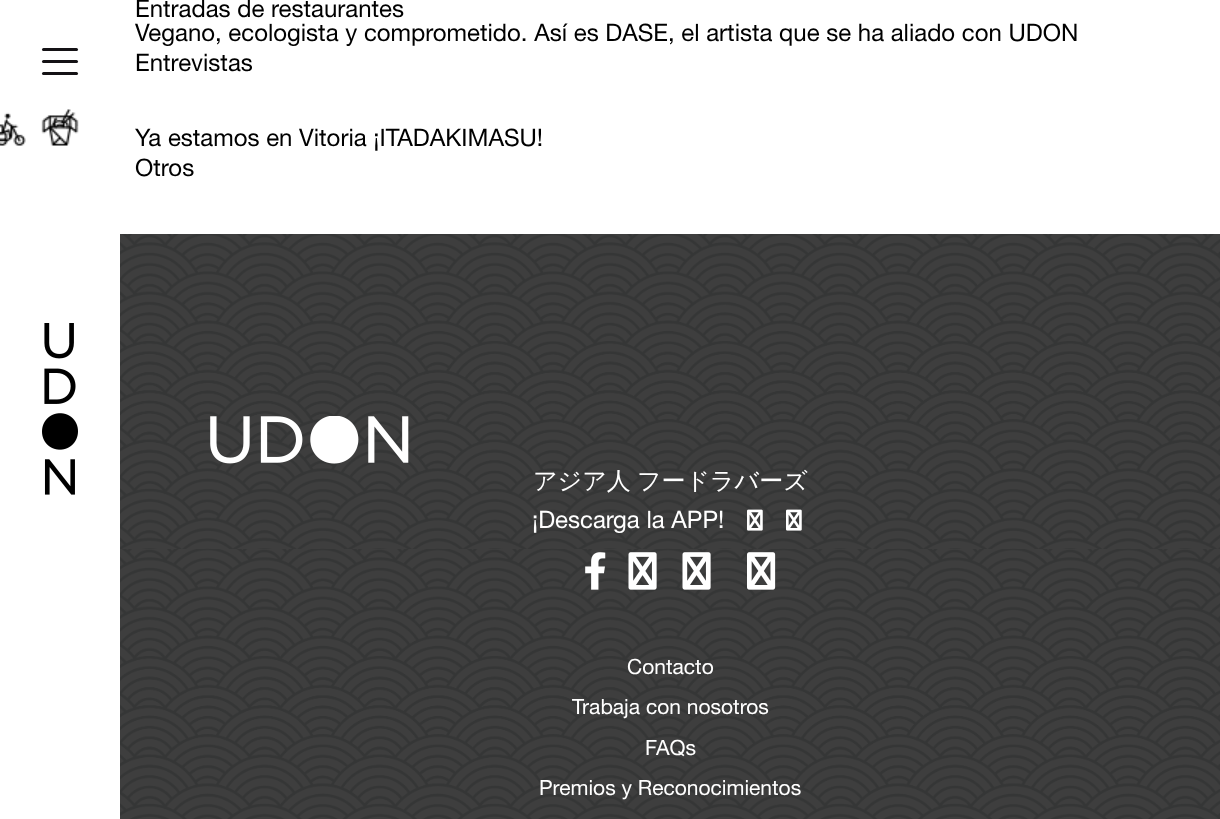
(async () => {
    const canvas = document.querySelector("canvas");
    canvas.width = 1220;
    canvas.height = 819;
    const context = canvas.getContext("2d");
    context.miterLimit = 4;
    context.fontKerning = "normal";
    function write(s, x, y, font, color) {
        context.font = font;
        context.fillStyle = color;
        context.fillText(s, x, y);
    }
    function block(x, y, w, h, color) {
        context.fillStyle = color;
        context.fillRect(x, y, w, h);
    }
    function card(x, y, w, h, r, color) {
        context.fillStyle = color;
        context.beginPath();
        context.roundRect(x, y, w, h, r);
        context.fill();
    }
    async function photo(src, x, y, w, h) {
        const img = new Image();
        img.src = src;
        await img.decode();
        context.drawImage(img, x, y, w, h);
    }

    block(0, 0, 1220, 819, "rgb(255, 255, 255)");
    card(42, 72, 36, 3, 1.5, "rgb(20, 18, 21)");
    card(42, 48, 36, 3, 1.5, "rgb(20, 18, 21)");
    card(42, 60, 36, 3, 1.5, "rgb(20, 18, 21)");
    await photo("media/1.png", 0, 109, 79, 37);
    await photo("media/2.png", 42, 323, 36, 172);
    write("Entradas de restaurantes", 135, 17, "24px Helvetica Neue", "rgb(0, 0, 0)");
    write("Vegano, ecologista y comprometido. Así es DASE, el artista que se ha aliado con UDON", 135, 41, "24px Helvetica Neue", "rgb(0, 0, 0)");
    write("Entrevistas", 135, 71, "24px Helvetica Neue", "rgb(0, 0, 0)");
    write("Ya estamos en Vitoria ¡ITADAKIMASU!", 135, 146, "24px Helvetica Neue", "rgb(0, 0, 0)");
    write("Otros", 135, 176, "24px Helvetica Neue", "rgb(0, 0, 0)");
    await photo("media/3.png", 120, 234, 1100, 585);
    await photo("media/4.png", 210, 416, 199, 48);
    context.wordSpacing = "-1px";
    write("アジア人 フードラバーズ", 533, 489, "500 24px WenQuanYi Zen Hei", "rgb(255, 255, 255)");
    context.wordSpacing = "0px";
    write("¡Descarga la APP!", 532, 528, "24px Helvetica Neue", "rgb(255, 255, 255)");
    await photo("media/5.png", 747, 509, 16, 22);
    await photo("media/6.png", 786, 509, 16, 22);
    await photo("media/7.png", 585, 552, 21, 38);
    await photo("media/8.png", 628, 552, 29, 38);
    await photo("media/9.png", 682, 552, 29, 38);
    await photo("media/10.png", 747, 552, 29, 38);
    write("Contacto", 627, 674, "21px Helvetica Neue", "rgb(255, 255, 255)");
    write("Trabaja con nosotros", 572, 714, "21px Helvetica Neue", "rgb(255, 255, 255)");
    write("FAQs", 645, 755, "21px Helvetica Neue", "rgb(255, 255, 255)");
    write("Premios y Reconocimientos", 539, 795, "21px Helvetica Neue", "rgb(255, 255, 255)");
})();
